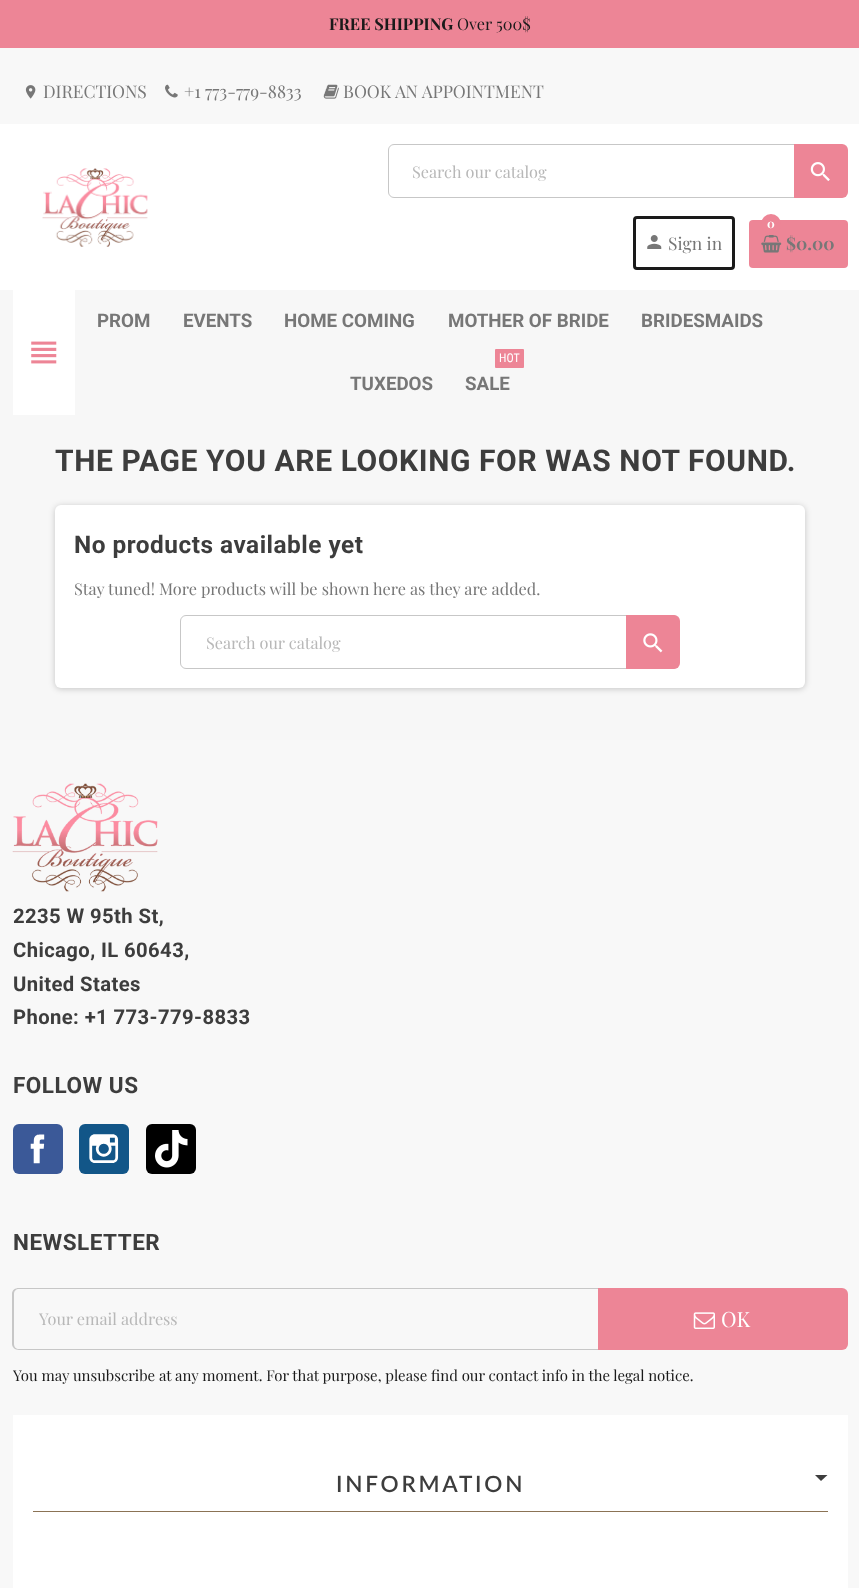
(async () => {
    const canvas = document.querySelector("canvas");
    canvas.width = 859;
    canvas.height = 1588;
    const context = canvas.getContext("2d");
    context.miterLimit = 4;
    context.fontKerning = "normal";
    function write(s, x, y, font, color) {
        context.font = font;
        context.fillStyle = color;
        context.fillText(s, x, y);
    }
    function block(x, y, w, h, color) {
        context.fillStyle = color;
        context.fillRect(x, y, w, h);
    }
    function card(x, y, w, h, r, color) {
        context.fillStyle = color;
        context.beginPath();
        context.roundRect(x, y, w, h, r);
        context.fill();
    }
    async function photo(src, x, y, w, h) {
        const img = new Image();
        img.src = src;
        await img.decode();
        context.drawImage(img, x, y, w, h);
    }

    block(0, 0, 859, 1588, "rgb(255, 255, 255)");
    block(0, 0, 859, 48, "rgb(237, 133, 150)");
    write("FREE SHIPPING", 329, 30, "bold 16.25px Playfair Display", "rgb(26, 26, 26)");
    write("Over 500$", 457, 30, "16.25px Playfair Display", "rgb(26, 26, 26)");
    block(0, 48, 859, 76, "rgb(248, 248, 248)");
    await photo("media/1.png", 25, 85, 11, 14);
    write("DIRECTIONS", 43, 98, "17.5px Playfair Display", "rgb(119, 119, 119)");
    await photo("media/2.png", 165, 84, 13, 14);
    write("+1 773-779-8833", 184, 98, "17.5px Playfair Display", "rgb(119, 119, 119)");
    await photo("media/3.png", 323, 84, 16, 15);
    write("BOOK AN APPOINTMENT", 343, 98, "17.5px Playfair Display", "rgb(119, 119, 119)");
    await photo("media/4.png", 42, 168, 106, 79);
    context.beginPath();
    context.roundRect(388.5, 144.5, 457, 53, 5.5);
    context.strokeStyle = "rgb(199, 199, 199)";
    context.stroke();
    write("Search our catalog", 412, 178, "16.25px Playfair Display", "rgb(184, 184, 184)");
    context.fillStyle = "rgb(237, 133, 150)";
    context.beginPath();
    context.roundRect(794, 144, 54, 54, [0, 6, 6, 0]);
    context.fill();
    await photo("media/5.png", 810, 162, 20, 19);
    context.beginPath();
    context.roundRect(634.5, 217.5, 99, 51, 2.5);
    context.strokeStyle = "rgb(26, 26, 26)";
    context.lineWidth = 3;
    context.stroke();
    await photo("media/6.png", 647, 235, 15, 14);
    write("Sign in", 668, 250, "17.5px Playfair Display", "rgb(119, 119, 119)");
    card(749, 220, 99, 48, 4, "rgb(237, 133, 150)");
    context.beginPath();
    context.arc(771, 224, 10, 0, Math.PI * 2);
    context.fill();
    write("0", 767, 228, "bold 12px Playfair Display", "rgb(255, 255, 255)");
    await photo("media/7.png", 761, 235, 21, 18);
    write("$0.00", 786, 250, "bold 17.5px Playfair Display", "rgb(119, 119, 119)");
    block(0, 290, 859, 450, "rgb(247, 247, 247)");
    block(13, 290, 62, 125, "rgb(255, 255, 255)");
    await photo("media/8.png", 31, 341, 26, 23);
    write("PROM", 97, 327, "bold 18.75px Roboto", "rgb(119, 119, 119)");
    write("EVENTS", 183, 327, "bold 18.75px Roboto", "rgb(119, 119, 119)");
    write("HOME COMING", 284, 327, "bold 18.75px Roboto", "rgb(119, 119, 119)");
    write("MOTHER OF BRIDE", 448, 327, "bold 18.75px Roboto", "rgb(119, 119, 119)");
    write("BRIDESMAIDS", 641, 327, "bold 18.75px Roboto", "rgb(119, 119, 119)");
    write("TUXEDOS", 350, 390, "bold 18.75px Roboto", "rgb(119, 119, 119)");
    card(495, 349, 29, 19, 1, "rgb(237, 133, 150)");
    write("HOT", 499, 362, "12px Roboto Condensed", "rgb(255, 255, 255)");
    write("SALE", 465, 390, "bold 18.75px Roboto", "rgb(119, 119, 119)");
    context.letterSpacing = "0.6px";
    write("THE PAGE YOU ARE LOOKING FOR WAS NOT FOUND.", 55, 471, "bold 30px Roboto", "rgb(61, 61, 61)");
    context.fillStyle = "rgba(0, 0, 0, 0.2)";
    context.filter = "blur(3px)";
    context.beginPath();
    context.roundRect(55, 506, 750, 183, 6);
    context.fill();
    context.filter = "none";
    card(55, 505, 750, 183, 6, "rgb(255, 255, 255)");
    context.letterSpacing = "0.5px";
    write("No products available yet", 74, 553, "bold 24.4px Roboto", "rgb(61, 61, 61)");
    context.letterSpacing = "0px";
    write("Stay tuned! More products will be shown here as they are added.", 74, 595, "16.25px Playfair Display", "rgb(119, 119, 119)");
    context.beginPath();
    context.roundRect(180.5, 615.5, 498, 53, 5.5);
    context.strokeStyle = "rgb(199, 199, 199)";
    context.lineWidth = 1;
    context.stroke();
    write("Search our catalog", 206, 649, "16.25px Playfair Display", "rgb(184, 184, 184)");
    context.fillStyle = "rgb(237, 133, 150)";
    context.beginPath();
    context.roundRect(626, 615, 54, 54, [0, 6, 6, 0]);
    context.fill();
    await photo("media/9.png", 643, 633, 20, 20);
    block(0, 740, 859, 848, "rgb(248, 248, 248)");
    await photo("media/10.png", 12, 783, 146, 109);
    context.letterSpacing = "0.4px";
    write("2235 W 95th St,", 13, 923, "bold 20.25px Roboto", "rgb(61, 61, 61)");
    write("Chicago, IL 60643,", 13, 957, "bold 20.25px Roboto", "rgb(61, 61, 61)");
    write("United States", 13, 991, "bold 20.25px Roboto", "rgb(61, 61, 61)");
    write("Phone: +1 773-779-8833", 13, 1024, "bold 20.25px Roboto", "rgb(61, 61, 61)");
    context.letterSpacing = "0.5px";
    write("FOLLOW US", 13, 1093, "bold 22.5px Roboto", "rgb(61, 61, 61)");
    card(13, 1124, 50, 50, 6, "rgb(59, 89, 152)");
    await photo("media/11.png", 30, 1134, 15, 30);
    card(79, 1124, 50, 50, 6, "rgb(18, 86, 136)");
    await photo("media/12.png", 89, 1134, 30, 29);
    card(146, 1124, 50, 50, 6, "rgb(0, 0, 0)");
    await photo("media/13.png", 155, 1130, 33, 38);
    write("NEWSLETTER", 13, 1250, "bold 22.5px Roboto", "rgb(61, 61, 61)");
    context.fillStyle = "rgb(199, 199, 199)";
    context.beginPath();
    context.moveTo(19, 1288);
    context.lineTo(598, 1288);
    context.lineTo(598, 1350);
    context.lineTo(19, 1350);
    context.bezierCurveTo(15, 1350, 12, 1347, 12, 1344);
    context.lineTo(12, 1294);
    context.bezierCurveTo(12, 1290, 15, 1288, 19, 1288);
    context.closePath();
    context.moveTo(19, 1289);
    context.lineTo(598, 1289);
    context.lineTo(598, 1349);
    context.lineTo(19, 1349);
    context.bezierCurveTo(16, 1349, 14, 1347, 14, 1344);
    context.lineTo(14, 1294);
    context.bezierCurveTo(14, 1291, 16, 1289, 19, 1289);
    context.closePath();
    context.fill("evenodd");
    context.letterSpacing = "0px";
    write("Your email address", 39, 1325, "16.25px Playfair Display", "rgb(184, 184, 184)");
    context.fillStyle = "rgb(237, 133, 150)";
    context.beginPath();
    context.roundRect(598, 1288, 250, 62, [0, 6, 6, 0]);
    context.fill();
    await photo("media/14.png", 693, 1312, 22, 17);
    write("OK", 721, 1327, "21px Playfair Display", "rgb(255, 255, 255)");
    write("You may unsubscribe at any moment. For that purpose, please find our contact info in the legal notice.", 13, 1381, "14.95px Playfair Display", "rgb(26, 26, 26)");
    block(13, 1415, 835, 173, "rgb(255, 255, 255)");
    block(33, 1511, 795, 1, "rgb(139, 115, 85)");
    context.letterSpacing = "2.75px";
    write("INFORMATION", 336, 1492, "600 22.5px Lato", "rgb(61, 61, 61)");
    context.beginPath();
    context.moveTo(815, 1475);
    context.lineTo(827.5, 1475);
    context.lineTo(821, 1481);
    context.closePath();
    context.fill();
})();
